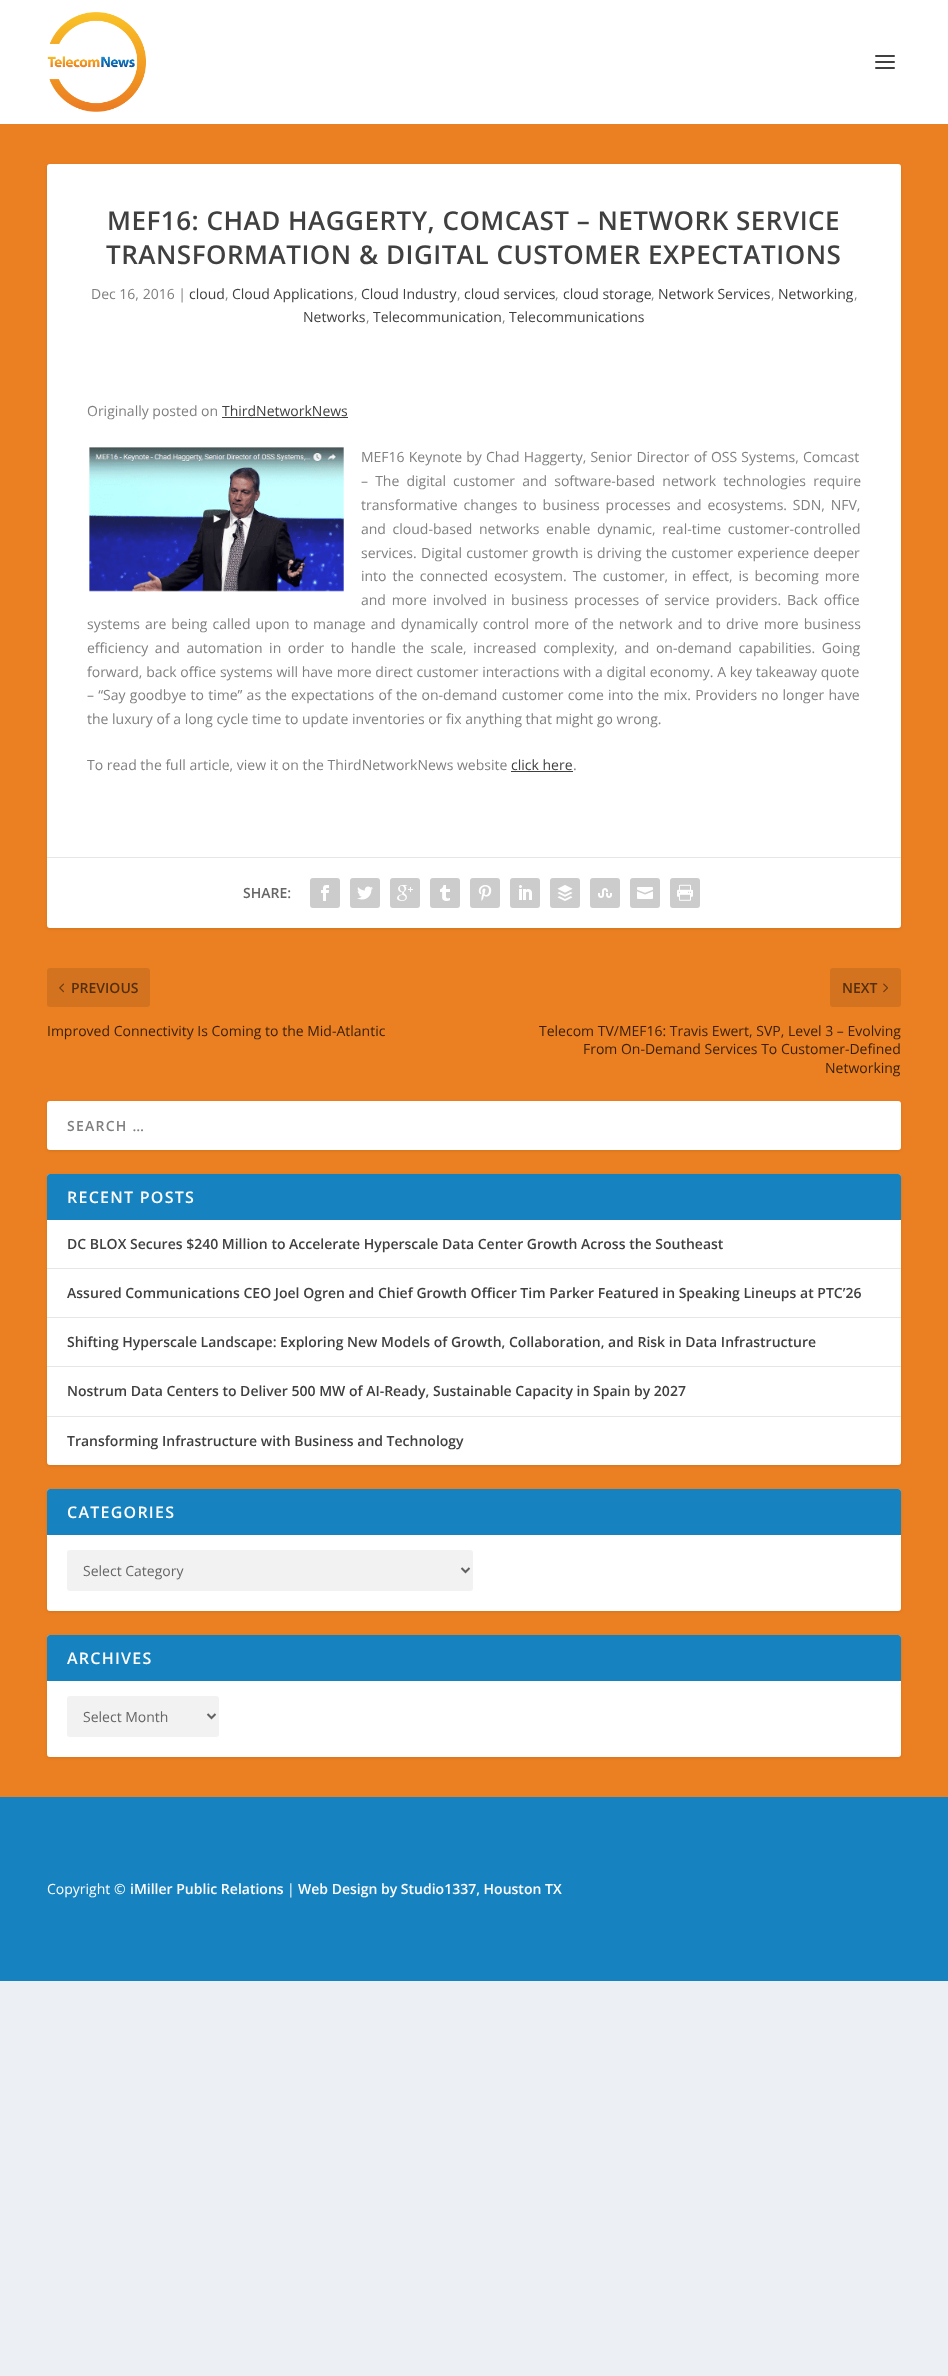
(async () => {
    const canvas = document.querySelector("canvas");
    canvas.width = 948;
    canvas.height = 2376;
    const context = canvas.getContext("2d");
    context.miterLimit = 4;
    context.fontKerning = "normal";
    function write(s, x, y, font, color) {
        context.font = font;
        context.fillStyle = color;
        context.fillText(s, x, y);
    }
    function block(x, y, w, h, color) {
        context.fillStyle = color;
        context.fillRect(x, y, w, h);
    }
    function card(x, y, w, h, r, color) {
        context.fillStyle = color;
        context.beginPath();
        context.roundRect(x, y, w, h, r);
        context.fill();
    }
    async function photo(src, x, y, w, h) {
        const img = new Image();
        img.src = src;
        await img.decode();
        context.drawImage(img, x, y, w, h);
    }

    block(0, 0, 948, 2376, "rgb(236, 240, 245)");
    block(0, 124, 948, 1673, "rgb(235, 128, 34)");
    block(0, 0, 948, 124, "rgb(255, 255, 255)");
    await photo("media/1.png", 47, 12, 99, 100);
    card(875, 55, 20, 2, 1, "rgb(64, 64, 64)");
    card(875, 61, 20, 2, 1, "rgb(64, 64, 64)");
    card(875, 67, 20, 2, 1, "rgb(64, 64, 64)");
    context.fillStyle = "rgba(0, 0, 0, 0.1)";
    context.filter = "blur(1.5px)";
    context.beginPath();
    context.roundRect(47, 165, 854, 764, 3);
    context.fill();
    context.filter = "none";
    card(47, 164, 854, 764, 3, "rgb(255, 255, 255)");
    context.letterSpacing = "0.5px";
    write("MEF16: CHAD HAGGERTY, COMCAST – NETWORK SERVICE", 107, 230, "600 26px Open Sans", "rgb(64, 64, 64)");
    write("TRANSFORMATION & DIGITAL CUSTOMER EXPECTATIONS", 106, 264, "600 26px Open Sans", "rgb(64, 64, 64)");
    context.letterSpacing = "0px";
    write("Dec 16, 2016 |", 91, 299, "14px Open Sans", "rgb(128, 128, 128)");
    write("cloud", 189, 299, "14px Open Sans", "rgb(64, 64, 64)");
    write(",", 225, 299, "14px Open Sans", "rgb(128, 128, 128)");
    write("Cloud Applications", 232, 299, "14px Open Sans", "rgb(64, 64, 64)");
    write(",", 354, 299, "14px Open Sans", "rgb(128, 128, 128)");
    write("Cloud Industry", 361, 299, "14px Open Sans", "rgb(64, 64, 64)");
    write(",", 457, 299, "14px Open Sans", "rgb(128, 128, 128)");
    write("cloud services", 464, 299, "14px Open Sans", "rgb(64, 64, 64)");
    write(",", 555, 299, "14px Open Sans", "rgb(128, 128, 128)");
    write("cloud storage", 563, 299, "14px Open Sans", "rgb(64, 64, 64)");
    write(",", 651, 299, "14px Open Sans", "rgb(128, 128, 128)");
    write("Network Services", 658, 299, "14px Open Sans", "rgb(64, 64, 64)");
    write(",", 771, 299, "14px Open Sans", "rgb(128, 128, 128)");
    write("Networking", 778, 299, "14px Open Sans", "rgb(64, 64, 64)");
    write(",", 854, 299, "14px Open Sans", "rgb(128, 128, 128)");
    write("Networks", 303, 322, "14px Open Sans", "rgb(64, 64, 64)");
    write(",", 366, 322, "14px Open Sans", "rgb(128, 128, 128)");
    write("Telecommunication", 373, 322, "14px Open Sans", "rgb(64, 64, 64)");
    write(",", 502, 322, "14px Open Sans", "rgb(128, 128, 128)");
    write("Telecommunications", 509, 322, "14px Open Sans", "rgb(64, 64, 64)");
    write("Originally posted on", 87, 416, "14px Open Sans", "rgb(128, 128, 128)");
    write("ThirdNetworkNews", 222, 416, "14px Open Sans", "rgb(64, 64, 64)");
    block(222, 417, 126, 1, "rgb(64, 64, 64)");
    await photo("media/2.png", 88, 447, 256, 145);
    context.wordSpacing = "0.5px";
    write("MEF16 Keynote by Chad Haggerty, Senior Director of OSS Systems, Comcast", 361, 462, "14px Open Sans", "rgb(128, 128, 128)");
    context.wordSpacing = "3.5px";
    write("– The digital customer and software-based network technologies require", 361, 486, "14px Open Sans", "rgb(128, 128, 128)");
    context.wordSpacing = "2.25px";
    write("transformative changes to business processes and ecosystems. SDN, NFV,", 361, 510, "14px Open Sans", "rgb(128, 128, 128)");
    context.wordSpacing = "3px";
    write("and cloud-based networks enable dynamic, real-time customer-controlled", 361, 534, "14px Open Sans", "rgb(128, 128, 128)");
    context.wordSpacing = "0px";
    write("services.", 361, 558, "14px Open Sans", "rgb(128, 128, 128)");
    context.wordSpacing = "0.5px";
    write("Digital customer growth is driving the customer experience deeper", 421, 558, "14px Open Sans", "rgb(128, 128, 128)");
    context.wordSpacing = "2.25px";
    write("into the connected ecosystem. The customer, in effect, is becoming more", 361, 581, "14px Open Sans", "rgb(128, 128, 128)");
    write("and more involved in business processes of service providers. Back office", 361, 605, "14px Open Sans", "rgb(128, 128, 128)");
    context.wordSpacing = "1.4px";
    write("systems are being called upon to manage and dynamically control more of the network and to drive more business", 87, 629, "14px Open Sans", "rgb(128, 128, 128)");
    context.wordSpacing = "3px";
    write("efficiency and automation in order to handle the scale, increased complexity, and on-demand capabilities. Going", 87, 653, "14px Open Sans", "rgb(128, 128, 128)");
    context.wordSpacing = "0.1px";
    write("forward, back office systems will have more direct customer interactions with a digital economy. A key takeaway quote", 87, 677, "14px Open Sans", "rgb(128, 128, 128)");
    context.wordSpacing = "0.6px";
    write("– “Say goodbye to time” as the expectations of the on-demand customer come into the mix. Providers no longer have", 87, 700, "14px Open Sans", "rgb(128, 128, 128)");
    context.wordSpacing = "0px";
    write("the luxury of a long cycle time to update inventories or fix anything that might go wrong.", 87, 724, "14px Open Sans", "rgb(128, 128, 128)");
    write("To read the full article, view it on the ThirdNetworkNews website", 87, 770, "14px Open Sans", "rgb(128, 128, 128)");
    write("click here", 511, 770, "14px Open Sans", "rgb(64, 64, 64)");
    block(511, 771, 62, 1, "rgb(64, 64, 64)");
    write(".", 573, 770, "14px Open Sans", "rgb(128, 128, 128)");
    block(47, 857, 854, 1, "rgb(230, 230, 230)");
    write("SHARE:", 243, 898, "600 14px Open Sans", "rgb(102, 102, 102)");
    card(310, 878, 30, 30, 3, "rgb(204, 204, 204)");
    await photo("media/3.png", 321, 885, 8, 16);
    card(350, 878, 30, 30, 3, "rgb(204, 204, 204)");
    await photo("media/4.png", 357, 886, 16, 14);
    card(390, 878, 30, 30, 3, "rgb(204, 204, 204)");
    await photo("media/5.png", 397, 885, 16, 16);
    card(430, 878, 30, 30, 3, "rgb(204, 204, 204)");
    await photo("media/6.png", 440, 885, 10, 16);
    card(470, 878, 30, 30, 3, "rgb(204, 204, 204)");
    await photo("media/7.png", 478, 885, 14, 16);
    card(510, 878, 30, 30, 3, "rgb(204, 204, 204)");
    await photo("media/8.png", 519, 885, 13, 15);
    card(550, 878, 30, 30, 3, "rgb(204, 204, 204)");
    await photo("media/9.png", 557, 885, 16, 16);
    card(590, 878, 30, 30, 3, "rgb(204, 204, 204)");
    await photo("media/10.png", 598, 888, 14, 10);
    card(630, 878, 30, 30, 3, "rgb(204, 204, 204)");
    await photo("media/11.png", 637, 887, 16, 12);
    card(670, 878, 30, 30, 3, "rgb(204, 204, 204)");
    await photo("media/12.png", 677, 884, 16, 17);
    card(47, 968, 103, 39, 3, "rgb(212, 115, 31)");
    await photo("media/13.png", 59, 983, 5, 10);
    write("PREVIOUS", 71, 993, "600 14px Open Sans", "rgb(85, 46, 12)");
    write("Improved Connectivity Is Coming to the Mid-Atlantic", 47, 1036, "14px Open Sans", "rgb(59, 32, 9)");
    card(830, 968, 71, 39, 3, "rgb(212, 115, 31)");
    write("NEXT", 842, 993, "600 14px Open Sans", "rgb(85, 46, 12)");
    await photo("media/14.png", 883, 983, 5, 10);
    write("Telecom TV/MEF16: Travis Ewert, SVP, Level 3 – Evolving", 539, 1036, "14px Open Sans", "rgb(59, 32, 9)");
    write("From On-Demand Services To Customer-Defined", 583, 1054, "14px Open Sans", "rgb(59, 32, 9)");
    write("Networking", 825, 1073, "14px Open Sans", "rgb(59, 32, 9)");
    context.fillStyle = "rgba(0, 0, 0, 0.1)";
    context.filter = "blur(1.5px)";
    context.beginPath();
    context.roundRect(47, 1102, 854, 49, 3);
    context.fill();
    context.filter = "none";
    card(47, 1101, 854, 49, 3, "rgb(255, 255, 255)");
    context.letterSpacing = "1.25px";
    write("SEARCH …", 67, 1131, "600 14px Open Sans", "rgb(128, 128, 128)");
    context.fillStyle = "rgba(0, 0, 0, 0.1)";
    context.filter = "blur(1.5px)";
    context.beginPath();
    context.roundRect(47, 1175, 854, 291, 3);
    context.fill();
    context.filter = "none";
    card(47, 1174, 854, 291, 3, "rgb(255, 255, 255)");
    context.fillStyle = "rgb(22, 130, 192)";
    context.beginPath();
    context.roundRect(47, 1174, 854, 46, [3, 3, 0, 0]);
    context.fill();
    write("RECENT POSTS", 67, 1203, "600 16px Open Sans", "rgb(255, 255, 255)");
    block(47, 1268, 854, 1, "rgb(230, 230, 230)");
    context.letterSpacing = "0px";
    write("DC BLOX Secures $240 Million to Accelerate Hyperscale Data Center Growth Across the Southeast", 67, 1249, "600 14px Open Sans", "rgb(64, 64, 64)");
    block(47, 1317, 854, 1, "rgb(230, 230, 230)");
    write("Assured Communications CEO Joel Ogren and Chief Growth Officer Tim Parker Featured in Speaking Lineups at PTC’26", 67, 1298, "600 14px Open Sans", "rgb(64, 64, 64)");
    block(47, 1366, 854, 1, "rgb(230, 230, 230)");
    write("Shifting Hyperscale Landscape: Exploring New Models of Growth, Collaboration, and Risk in Data Infrastructure", 67, 1347, "600 14px Open Sans", "rgb(64, 64, 64)");
    block(47, 1416, 854, 1, "rgb(230, 230, 230)");
    write("Nostrum Data Centers to Deliver 500 MW of AI-Ready, Sustainable Capacity in Spain by 2027", 67, 1396, "600 14px Open Sans", "rgb(64, 64, 64)");
    write("Transforming Infrastructure with Business and Technology", 67, 1446, "600 14px Open Sans", "rgb(64, 64, 64)");
    context.fillStyle = "rgba(0, 0, 0, 0.1)";
    context.filter = "blur(1.5px)";
    context.beginPath();
    context.roundRect(47, 1490, 854, 122, 3);
    context.fill();
    context.filter = "none";
    card(47, 1489, 854, 122, 3, "rgb(255, 255, 255)");
    context.fillStyle = "rgb(22, 130, 192)";
    context.beginPath();
    context.roundRect(47, 1489, 854, 46, [3, 3, 0, 0]);
    context.fill();
    context.letterSpacing = "1.25px";
    write("CATEGORIES", 67, 1518, "600 16px Open Sans", "rgb(255, 255, 255)");
    card(67, 1550, 406, 41, 3, "rgb(242, 242, 242)");
    context.beginPath();
    context.moveTo(461.5, 1568);
    context.lineTo(465.5, 1572);
    context.lineTo(469.5, 1568);
    context.strokeStyle = "rgb(97, 97, 97)";
    context.lineWidth = 2;
    context.stroke();
    context.letterSpacing = "0px";
    write("Select Category", 83, 1576, "14px Open Sans", "rgb(102, 102, 102)");
    context.fillStyle = "rgba(0, 0, 0, 0.1)";
    context.filter = "blur(1.5px)";
    context.beginPath();
    context.roundRect(47, 1636, 854, 122, 3);
    context.fill();
    context.filter = "none";
    card(47, 1635, 854, 122, 3, "rgb(255, 255, 255)");
    context.fillStyle = "rgb(22, 130, 192)";
    context.beginPath();
    context.roundRect(47, 1635, 854, 46, [3, 3, 0, 0]);
    context.fill();
    context.letterSpacing = "1.25px";
    write("ARCHIVES", 67, 1664, "600 16px Open Sans", "rgb(255, 255, 255)");
    card(67, 1696, 152, 41, 3, "rgb(242, 242, 242)");
    context.beginPath();
    context.moveTo(207.5, 1714);
    context.lineTo(211.5, 1718);
    context.lineTo(215.5, 1714);
    context.stroke();
    context.letterSpacing = "0px";
    write("Select Month", 83, 1722, "14px Open Sans", "rgb(102, 102, 102)");
    block(0, 1797, 948, 184, "rgb(22, 130, 192)");
    write("Copyright ©", 47, 1894, "14px Open Sans", "rgb(255, 255, 255)");
    write("iMiller Public Relations", 130, 1894, "600 14px Open Sans", "rgb(255, 255, 255)");
    write("|", 287, 1894, "14px Open Sans", "rgb(255, 255, 255)");
    write("Web Design by Studio1337, Houston TX", 298, 1894, "600 14px Open Sans", "rgb(255, 255, 255)");
})();
